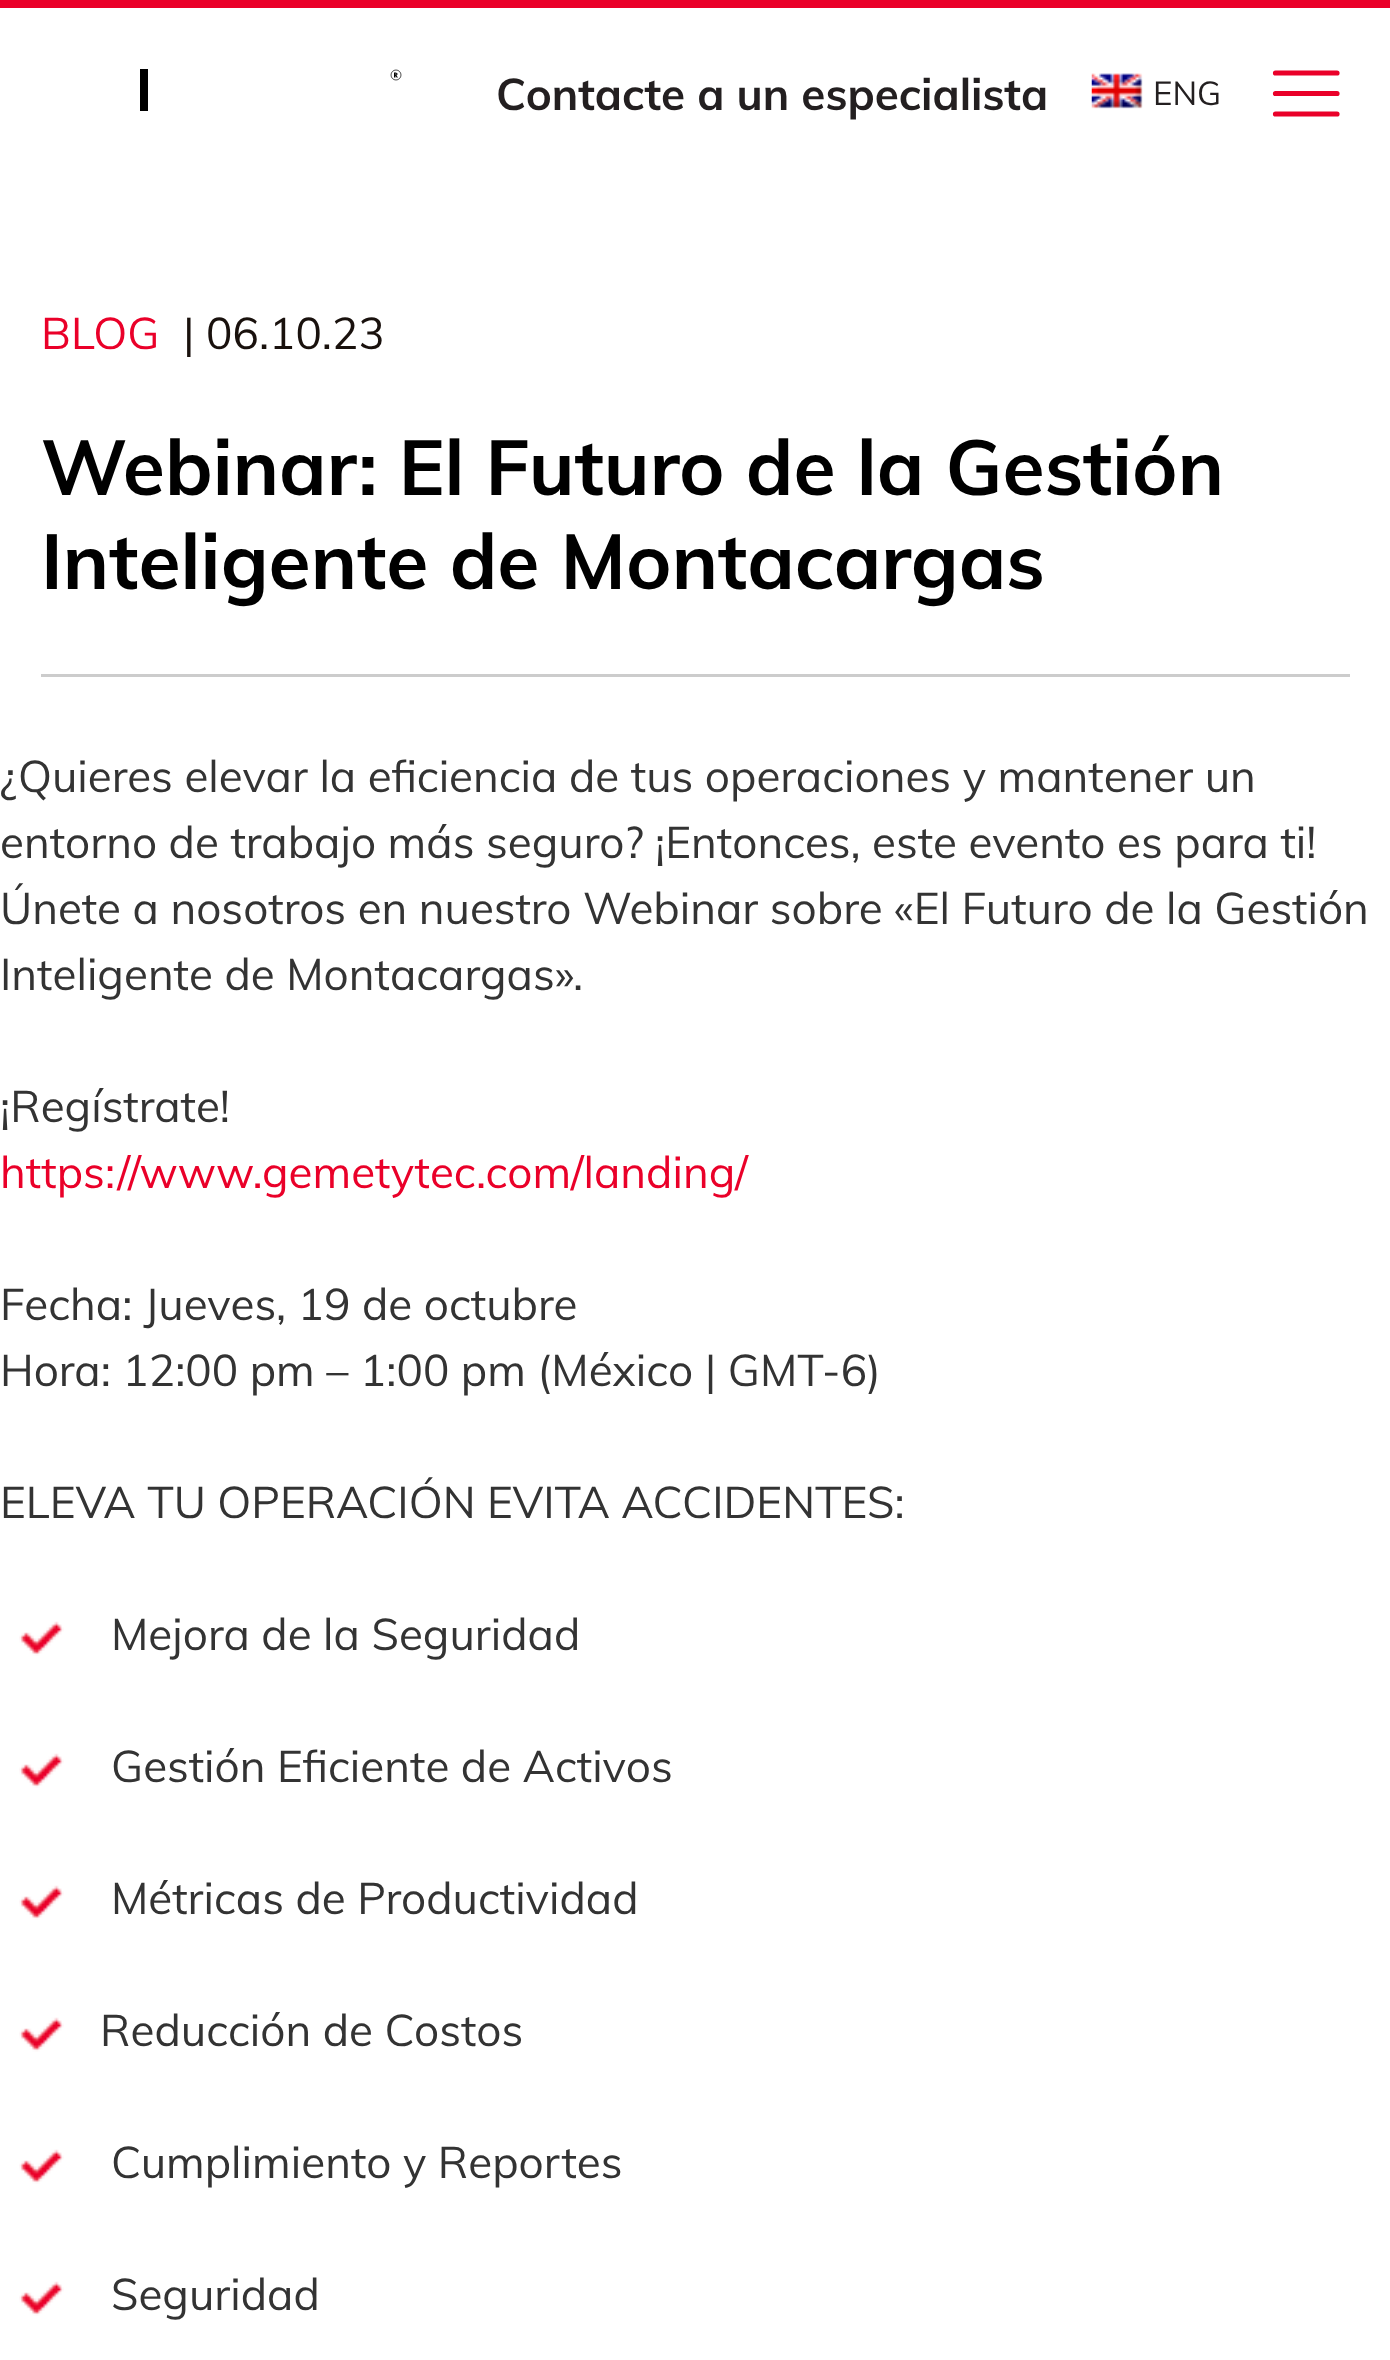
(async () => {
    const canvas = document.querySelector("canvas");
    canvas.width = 1390;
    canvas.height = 2360;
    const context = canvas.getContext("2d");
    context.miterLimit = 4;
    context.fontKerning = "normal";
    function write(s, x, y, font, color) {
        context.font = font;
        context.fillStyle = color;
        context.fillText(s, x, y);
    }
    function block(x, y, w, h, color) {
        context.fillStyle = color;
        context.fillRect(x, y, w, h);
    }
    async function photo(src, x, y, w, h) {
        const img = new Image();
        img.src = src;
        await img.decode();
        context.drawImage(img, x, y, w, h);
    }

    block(0, 0, 1390, 2360, "rgb(255, 255, 255)");
    block(0, 0, 1390, 8, "rgb(234, 0, 41)");
    block(140, 69, 8, 42, "rgb(0, 0, 0)");
    context.beginPath();
    context.moveTo(394, 72.5);
    context.bezierCurveTo(395, 72.5, 398, 72.5, 397.5, 74.5);
    context.lineTo(396.5, 75.5);
    context.lineTo(398, 77.5);
    context.lineTo(396.5, 77.5);
    context.lineTo(395.5, 75.5);
    context.lineTo(395.5, 77.5);
    context.lineTo(394, 77.5);
    context.closePath();
    context.moveTo(395.5, 74.5);
    context.bezierCurveTo(396, 74.5, 397, 74.5, 396, 73.5);
    context.lineTo(395.5, 73.5);
    context.closePath();
    context.fill();
    context.beginPath();
    context.arc(396, 75, 5, 0, Math.PI * 2);
    context.strokeStyle = "rgb(0, 0, 0)";
    context.lineWidth = 0.7;
    context.stroke();
    write("Contacte a un especialista", 496, 110, "bold 44px Muli", "rgb(35, 31, 32)");
    await photo("media/1.png", 1091, 73, 52, 36);
    write("ENG", 1153, 105, "33px Muli", "rgb(35, 31, 32)");
    context.beginPath();
    context.moveTo(1275.5, 73);
    context.lineTo(1337, 73);
    context.moveTo(1275.5, 93.5);
    context.lineTo(1337, 93.5);
    context.moveTo(1275.5, 114);
    context.lineTo(1337, 114);
    context.strokeStyle = "rgb(234, 0, 41)";
    context.lineWidth = 5.2;
    context.lineCap = "round";
    context.stroke();
    write("BLOG", 41, 349, "44px Muli", "rgb(234, 0, 41)");
    write("| 06.10.23", 183, 349, "44px Muli", "rgb(25, 17, 13)");
    write("Webinar: El Futuro de la Gestión", 41, 495, "bold 77px Muli", "rgb(0, 0, 0)");
    write("Inteligente de Montacargas", 41, 589, "bold 77px Muli", "rgb(0, 0, 0)");
    block(41, 674, 1309, 3, "rgb(204, 204, 204)");
    write("¿Quieres elevar la eficiencia de tus operaciones y mantener un", 0, 792, "44px Muli", "rgb(51, 51, 51)");
    write("entorno de trabajo más seguro? ¡Entonces, este evento es para ti!", 0, 858, "44px Muli", "rgb(51, 51, 51)");
    write("Únete a nosotros en nuestro Webinar sobre «El Futuro de la Gestión", 0, 924, "44px Muli", "rgb(51, 51, 51)");
    write("Inteligente de Montacargas».", 0, 990, "44px Muli", "rgb(51, 51, 51)");
    write("¡Regístrate!", 0, 1122, "44px Muli", "rgb(51, 51, 51)");
    write("https://www.gemetytec.com/landing/", 0, 1188, "44px Muli", "rgb(234, 0, 41)");
    write("Fecha: Jueves, 19 de octubre", 0, 1320, "44px Muli", "rgb(51, 51, 51)");
    write("Hora: 12:00 pm – 1:00 pm (México | GMT-6)", 0, 1386, "44px Muli", "rgb(51, 51, 51)");
    write("ELEVA TU OPERACIÓN EVITA ACCIDENTES:", 0, 1518, "44px Muli", "rgb(51, 51, 51)");
    await photo("media/2.png", 19, 1621, 45, 35);
    write("Mejora de la Seguridad", 111, 1650, "44px Muli", "rgb(51, 51, 51)");
    await photo("media/2.png", 19, 1753, 45, 35);
    write("Gestión Eficiente de Activos", 111, 1782, "44px Muli", "rgb(51, 51, 51)");
    await photo("media/2.png", 19, 1885, 45, 35);
    write("Métricas de Productividad", 111, 1914, "44px Muli", "rgb(51, 51, 51)");
    await photo("media/2.png", 19, 2017, 45, 35);
    write("Reducción de Costos", 100, 2046, "44px Muli", "rgb(51, 51, 51)");
    await photo("media/2.png", 19, 2149, 45, 35);
    write("Cumplimiento y Reportes", 111, 2178, "44px Muli", "rgb(51, 51, 51)");
    await photo("media/2.png", 19, 2281, 45, 35);
    write("Seguridad", 111, 2310, "44px Muli", "rgb(51, 51, 51)");
})();
